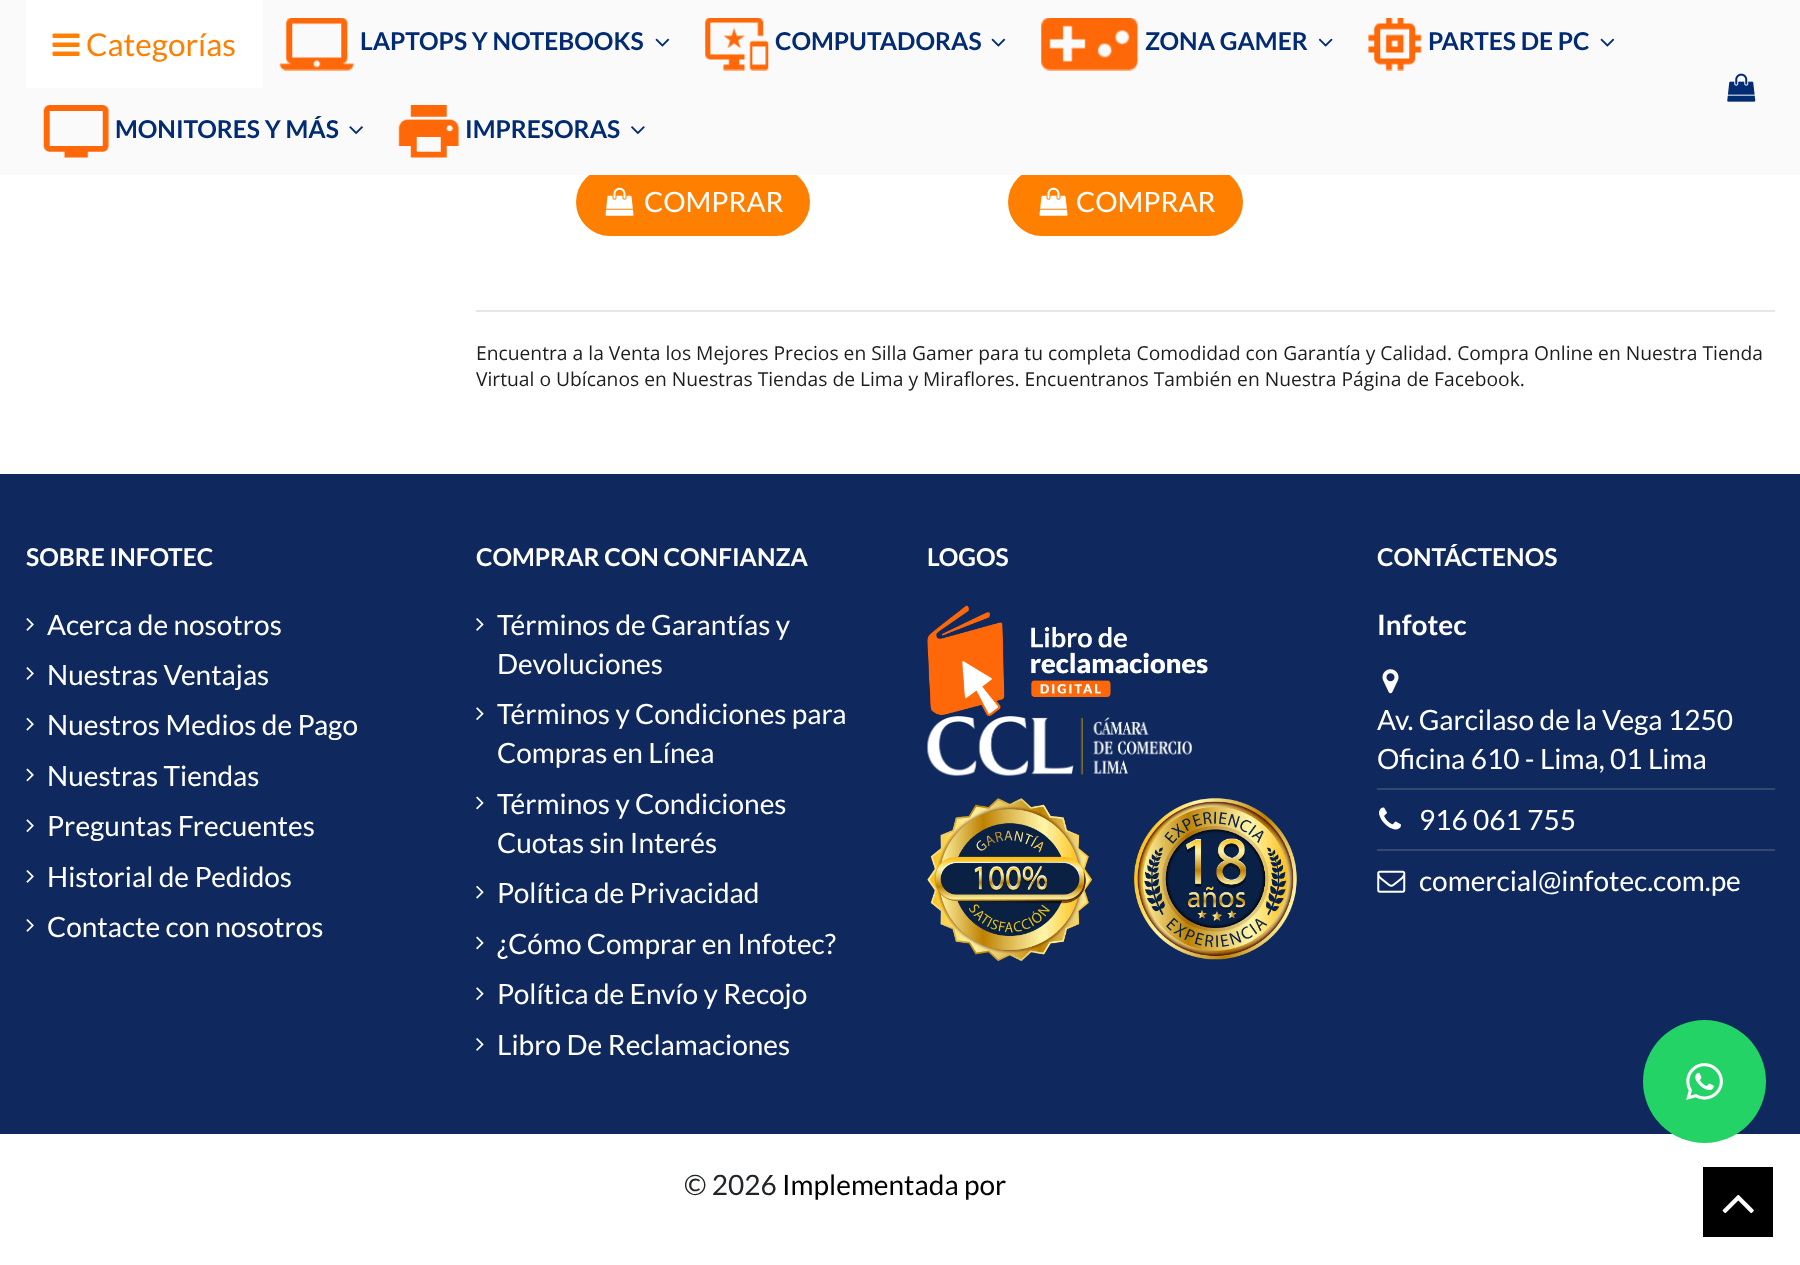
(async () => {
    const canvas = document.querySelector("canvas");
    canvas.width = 1800;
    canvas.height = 1265;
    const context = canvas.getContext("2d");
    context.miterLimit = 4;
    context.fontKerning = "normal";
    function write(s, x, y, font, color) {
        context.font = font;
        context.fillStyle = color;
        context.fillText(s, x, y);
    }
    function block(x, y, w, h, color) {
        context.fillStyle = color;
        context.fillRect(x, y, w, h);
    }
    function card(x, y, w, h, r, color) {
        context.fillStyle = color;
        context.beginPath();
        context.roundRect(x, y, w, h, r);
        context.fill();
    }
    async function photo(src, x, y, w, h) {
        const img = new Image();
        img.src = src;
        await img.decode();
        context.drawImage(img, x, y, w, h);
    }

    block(0, 0, 1800, 1265, "rgb(255, 255, 255)");
    card(576, 168, 234, 68, 34, "rgb(255, 128, 0)");
    card(1008, 168, 235, 68, 34, "rgb(255, 128, 0)");
    block(0, 0, 1800, 175, "rgb(250, 250, 250)");
    await photo("media/1.png", 279, 18, 76, 53);
    write("LAPTOPS Y NOTEBOOKS", 360, 50, "bold 24.5px Lato", "rgb(1, 43, 114)");
    await photo("media/2.png", 655, 38, 15, 9);
    await photo("media/3.png", 705, 18, 64, 53);
    write("COMPUTADORAS", 775, 50, "bold 24.5px Lato", "rgb(1, 43, 114)");
    await photo("media/2.png", 991, 38, 15, 9);
    await photo("media/4.png", 1041, 18, 98, 53);
    write("ZONA GAMER", 1145, 50, "bold 24.5px Lato", "rgb(1, 43, 114)");
    await photo("media/5.png", 1318, 38, 15, 9);
    await photo("media/6.png", 1368, 18, 54, 53);
    write("PARTES DE PC", 1428, 50, "bold 24.5px Lato", "rgb(1, 43, 114)");
    await photo("media/2.png", 1600, 38, 15, 9);
    await photo("media/7.png", 43, 105, 66, 53);
    write("MONITORES Y MÁS", 115, 138, "bold 24.5px Lato", "rgb(1, 43, 114)");
    await photo("media/8.png", 349, 126, 14, 9);
    await photo("media/9.png", 398, 105, 61, 53);
    write("IMPRESORAS", 465, 138, "bold 24.5px Lato", "rgb(1, 43, 114)");
    await photo("media/10.png", 631, 126, 14, 9);
    block(26, 0, 237, 88, "rgb(255, 255, 255)");
    await photo("media/11.png", 52, 33, 28, 23);
    write("Categorías", 86, 56, "31.5px Lato", "rgb(255, 128, 0)");
    await photo("media/12.png", 1727, 73, 29, 29);
    await photo("media/13.png", 605, 187, 29, 29);
    write("COMPRAR", 644, 212, "28px Lato", "rgb(255, 255, 255)");
    await photo("media/13.png", 1039, 187, 29, 29);
    write("COMPRAR", 1076, 212, "28px Lato", "rgb(255, 255, 255)");
    block(476, 310, 1299, 2, "rgb(231, 231, 231)");
    write("Encuentra a la Venta los Mejores Precios en Silla Gamer para tu completa Comodidad con Garantía y Calidad. Compra Online en Nuestra Tienda", 476, 360, "19.25px Open Sans", "rgb(29, 29, 29)");
    write("Virtual o Ubícanos en Nuestras Tiendas de Lima y Miraflores. Encuentranos También en Nuestra Página de Facebook.", 476, 386, "19.25px Open Sans", "rgb(29, 29, 29)");
    block(0, 474, 1800, 660, "rgb(15, 41, 94)");
    write("SOBRE INFOTEC", 26, 566, "bold 24.5px Lato", "rgb(255, 255, 255)");
    await photo("media/14.png", 26, 618, 8, 13);
    write("Acerca de nosotros", 47, 635, "28px Lato", "rgb(255, 255, 255)");
    await photo("media/14.png", 26, 667, 8, 13);
    write("Nuestras Ventajas", 47, 685, "28px Lato", "rgb(255, 255, 255)");
    await photo("media/15.png", 26, 717, 8, 14);
    write("Nuestros Medios de Pago", 47, 735, "28px Lato", "rgb(255, 255, 255)");
    await photo("media/16.png", 26, 768, 8, 14);
    write("Nuestras Tiendas", 47, 786, "28px Lato", "rgb(255, 255, 255)");
    await photo("media/17.png", 26, 819, 8, 13);
    write("Preguntas Frecuentes", 47, 836, "28px Lato", "rgb(255, 255, 255)");
    await photo("media/14.png", 26, 870, 8, 13);
    write("Historial de Pedidos", 47, 887, "28px Lato", "rgb(255, 255, 255)");
    await photo("media/14.png", 26, 919, 8, 13);
    write("Contacte con nosotros", 47, 937, "28px Lato", "rgb(255, 255, 255)");
    write("COMPRAR CON CONFIANZA", 476, 566, "bold 24.5px Lato", "rgb(255, 255, 255)");
    await photo("media/18.png", 476, 618, 8, 13);
    write("Términos de Garantías y", 497, 635, "28px Lato", "rgb(255, 255, 255)");
    write("Devoluciones", 497, 674, "28px Lato", "rgb(255, 255, 255)");
    await photo("media/19.png", 476, 707, 8, 13);
    write("Términos y Condiciones para", 497, 724, "28px Lato", "rgb(255, 255, 255)");
    write("Compras en Línea", 497, 763, "28px Lato", "rgb(255, 255, 255)");
    await photo("media/20.png", 476, 796, 8, 14);
    write("Términos y Condiciones", 497, 814, "28px Lato", "rgb(255, 255, 255)");
    write("Cuotas sin Interés", 497, 853, "28px Lato", "rgb(255, 255, 255)");
    await photo("media/21.png", 476, 885, 8, 14);
    write("Política de Privacidad", 497, 903, "28px Lato", "rgb(255, 255, 255)");
    await photo("media/20.png", 476, 936, 8, 14);
    write("¿Cómo Comprar en Infotec?", 497, 954, "28px Lato", "rgb(255, 255, 255)");
    await photo("media/19.png", 476, 987, 8, 13);
    write("Política de Envío y Recojo", 497, 1004, "28px Lato", "rgb(255, 255, 255)");
    await photo("media/18.png", 476, 1038, 8, 13);
    write("Libro De Reclamaciones", 497, 1055, "28px Lato", "rgb(255, 255, 255)");
    write("LOGOS", 927, 566, "bold 24.5px Lato", "rgb(255, 255, 255)");
    await photo("media/22.png", 927, 605, 281, 111);
    await photo("media/23.png", 927, 716, 265, 60);
    await photo("media/24.png", 927, 798, 165, 163);
    await photo("media/25.png", 1134, 798, 163, 162);
    write("CONTÁCTENOS", 1377, 566, "bold 24.5px Lato", "rgb(255, 255, 255)");
    write("Infotec", 1377, 635, "bold 28px Lato", "rgb(255, 255, 255)");
    await photo("media/26.png", 1382, 669, 17, 25);
    write("Av. Garcilaso de la Vega 1250", 1377, 730, "28px Lato", "rgb(255, 255, 255)");
    write("Oficina 610 - Lima, 01 Lima", 1377, 769, "28px Lato", "rgb(255, 255, 255)");
    block(1377, 788, 398, 2, "rgb(51, 71, 111)");
    await photo("media/27.png", 1379, 807, 22, 23);
    write("916 061 755", 1419, 830, "28px Lato", "rgb(255, 255, 255)");
    block(1377, 849, 398, 2, "rgb(51, 71, 111)");
    await photo("media/28.png", 1377, 870, 29, 23);
    write("comercial@infotec.com.pe", 1419, 891, "28px Lato", "rgb(255, 255, 255)");
    write("© 2026", 684, 1195, "28px Lato", "rgb(33, 37, 41)");
    write("Implementada por", 782, 1195, "28px Lato", "rgb(0, 0, 0)");
    context.fillStyle = "rgb(35, 211, 102)";
    context.beginPath();
    context.arc(1704.5, 1081.5, 61.5, 0, Math.PI * 2);
    context.fill();
    await photo("media/29.png", 1686, 1063, 37, 37);
    block(1703, 1167, 70, 70, "rgb(0, 0, 0)");
    await photo("media/30.png", 1722, 1194, 32, 20);
})();
